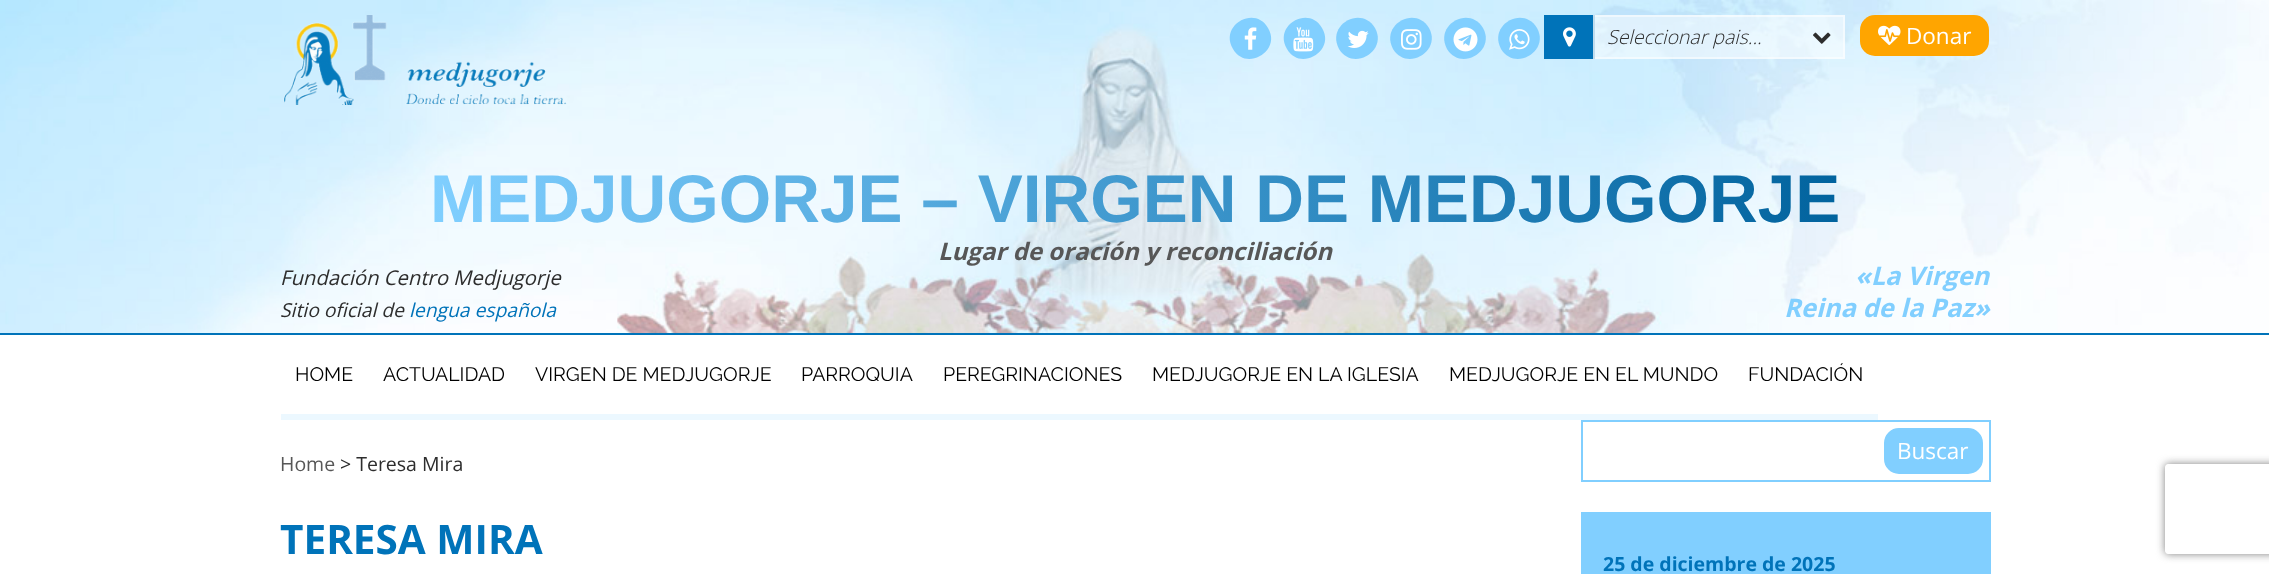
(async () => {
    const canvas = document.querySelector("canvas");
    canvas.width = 2269;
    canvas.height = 574;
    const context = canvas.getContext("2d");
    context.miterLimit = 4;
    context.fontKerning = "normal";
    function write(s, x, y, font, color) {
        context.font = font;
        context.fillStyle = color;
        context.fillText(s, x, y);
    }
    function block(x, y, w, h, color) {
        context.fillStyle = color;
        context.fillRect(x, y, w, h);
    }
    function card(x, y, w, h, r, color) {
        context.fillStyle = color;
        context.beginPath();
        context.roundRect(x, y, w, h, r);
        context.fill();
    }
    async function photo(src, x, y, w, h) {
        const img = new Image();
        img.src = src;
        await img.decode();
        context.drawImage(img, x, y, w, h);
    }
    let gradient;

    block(0, 0, 2269, 574, "rgb(255, 255, 255)");
    await photo("media/1.png", 0, 0, 2269, 333);
    block(0, 333, 2269, 2, "rgb(0, 115, 185)");
    await photo("media/2.png", 283, 15, 284, 90);
    context.fillStyle = "rgb(129, 207, 255)";
    context.beginPath();
    context.moveTo(1268, 28);
    context.bezierCurveTo(1282, 51, 1246, 72, 1233, 49);
    context.bezierCurveTo(1219, 25, 1255, 5, 1268, 28);
    context.closePath();
    context.fill();
    await photo("media/3.png", 1244, 27, 13, 23);
    context.beginPath();
    context.moveTo(1322, 28);
    context.bezierCurveTo(1336, 51, 1300, 72, 1287, 49);
    context.bezierCurveTo(1273, 25, 1309, 5, 1322, 28);
    context.closePath();
    context.fill();
    await photo("media/4.png", 1293, 27, 21, 25);
    context.beginPath();
    context.moveTo(1375, 28);
    context.bezierCurveTo(1388, 51, 1353, 72, 1339, 49);
    context.bezierCurveTo(1326, 25, 1361, 5, 1375, 28);
    context.closePath();
    context.fill();
    await photo("media/5.png", 1347, 30, 22, 18);
    context.beginPath();
    context.moveTo(1429, 28);
    context.bezierCurveTo(1442, 51, 1407, 72, 1393, 49);
    context.bezierCurveTo(1380, 25, 1415, 5, 1429, 28);
    context.closePath();
    context.fill();
    await photo("media/6.png", 1401, 29, 21, 21);
    context.beginPath();
    context.moveTo(1483, 28);
    context.bezierCurveTo(1496, 51, 1461, 72, 1447, 49);
    context.bezierCurveTo(1434, 25, 1469, 5, 1483, 28);
    context.closePath();
    context.fill();
    await photo("media/7.png", 1453, 27, 25, 25);
    context.beginPath();
    context.moveTo(1537, 28);
    context.bezierCurveTo(1550, 51, 1515, 72, 1501, 49);
    context.bezierCurveTo(1488, 25, 1523, 5, 1537, 28);
    context.closePath();
    context.fill();
    await photo("media/8.png", 1509, 29, 21, 21);
    block(1544, 15, 51, 44, "rgb(0, 115, 185)");
    await photo("media/9.png", 1563, 27, 13, 20);
    block(1593, 15, 252, 44, "rgba(255, 255, 255, 0.5)");
    context.strokeStyle = "rgba(255, 255, 255, 0.5)";
    context.lineWidth = 2;
    context.strokeRect(1594, 16, 250, 42);
    write("Seleccionar pais...", 1607, 44, "italic 300 19.5px Open Sans", "rgb(45, 45, 45)");
    await photo("media/10.png", 1813, 32, 18, 12);
    card(1860, 15, 129, 41, 15, "rgb(255, 165, 0)");
    await photo("media/11.png", 1878, 25, 23, 21);
    write("Donar", 1906, 44, "22.5px Open Sans", "rgb(255, 255, 255)");
    context.font = "bold 67.5px Liberation Sans";
    gradient = context.createLinearGradient(430, 199, 1840, 199);
    gradient.addColorStop(0, "rgb(128, 207, 255)");
    gradient.addColorStop(1, "rgb(1, 99, 158)");
    context.fillStyle = gradient;
    context.fillText("MEDJUGORJE – VIRGEN DE MEDJUGORJE", 430, 222);
    write("Lugar de oración y reconciliación", 938, 260, "italic bold 24px Open Sans", "rgb(87, 87, 87)");
    write("Fundación Centro Medjugorje", 280, 285, "italic 20.25px Open Sans", "rgb(45, 45, 45)");
    write("Sitio oficial de", 280, 317, "italic 19.25px Open Sans", "rgb(45, 45, 45)");
    write("lengua española", 409, 317, "italic 19.25px Open Sans", "rgb(0, 115, 185)");
    write("«La Virgen", 1855, 285, "italic bold 25.5px Open Sans", "rgb(129, 207, 255)");
    write("Reina de la Paz»", 1784, 317, "italic bold 25.5px Open Sans", "rgb(129, 207, 255)");
    block(281, 414, 1597, 6, "rgb(236, 248, 255)");
    write("HOME", 295, 381, "19.5px Raleway", "rgb(0, 0, 0)");
    write("ACTUALIDAD", 383, 381, "19.5px Raleway", "rgb(0, 0, 0)");
    write("VIRGEN DE MEDJUGORJE", 535, 381, "19.5px Raleway", "rgb(0, 0, 0)");
    write("PARROQUIA", 801, 381, "19.5px Raleway", "rgb(0, 0, 0)");
    write("PEREGRINACIONES", 943, 381, "19.5px Raleway", "rgb(0, 0, 0)");
    write("MEDJUGORJE EN LA IGLESIA", 1152, 381, "19.5px Raleway", "rgb(0, 0, 0)");
    write("MEDJUGORJE EN EL MUNDO", 1449, 381, "19.5px Raleway", "rgb(0, 0, 0)");
    write("FUNDACIÓN", 1748, 381, "19.5px Raleway", "rgb(0, 0, 0)");
    write("Home", 280, 471, "19.5px Open Sans", "rgb(87, 87, 87)");
    write("> Teresa Mira", 340, 471, "19.5px Open Sans", "rgb(45, 45, 45)");
    write("TERESA MIRA", 280, 554, "bold 40.5px Open Sans", "rgb(0, 115, 185)");
    context.strokeStyle = "rgb(129, 207, 255)";
    context.strokeRect(1582, 421, 408, 60);
    context.fillStyle = "rgb(129, 207, 255)";
    context.beginPath();
    context.roundRect(1885, 429, 97, 44, 14);
    context.fill();
    context.stroke();
    write("Buscar", 1897, 459, "22.5px Open Sans", "rgb(255, 255, 255)");
    block(1581, 512, 410, 62, "rgb(129, 207, 255)");
    write("25 de diciembre de 2025", 1603, 571, "bold 19.5px Open Sans", "rgb(0, 115, 185)");
    context.save();
    context.beginPath();
    context.moveTo(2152, 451);
    context.lineTo(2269, 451);
    context.lineTo(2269, 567);
    context.lineTo(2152, 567);
    context.closePath();
    context.moveTo(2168, 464);
    context.lineTo(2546, 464);
    context.bezierCurveTo(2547.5, 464, 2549, 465.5, 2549, 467);
    context.lineTo(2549, 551);
    context.bezierCurveTo(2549, 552.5, 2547.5, 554, 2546, 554);
    context.lineTo(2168, 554);
    context.bezierCurveTo(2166.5, 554, 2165, 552.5, 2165, 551);
    context.lineTo(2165, 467);
    context.bezierCurveTo(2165, 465.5, 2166.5, 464, 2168, 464);
    context.closePath();
    context.clip("evenodd");
    context.fillStyle = "rgb(128, 128, 128)";
    context.filter = "blur(4px)";
    context.beginPath();
    context.roundRect(2165, 464, 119, 90, 3);
    context.fill();
    context.filter = "none";
    context.restore();
})();
